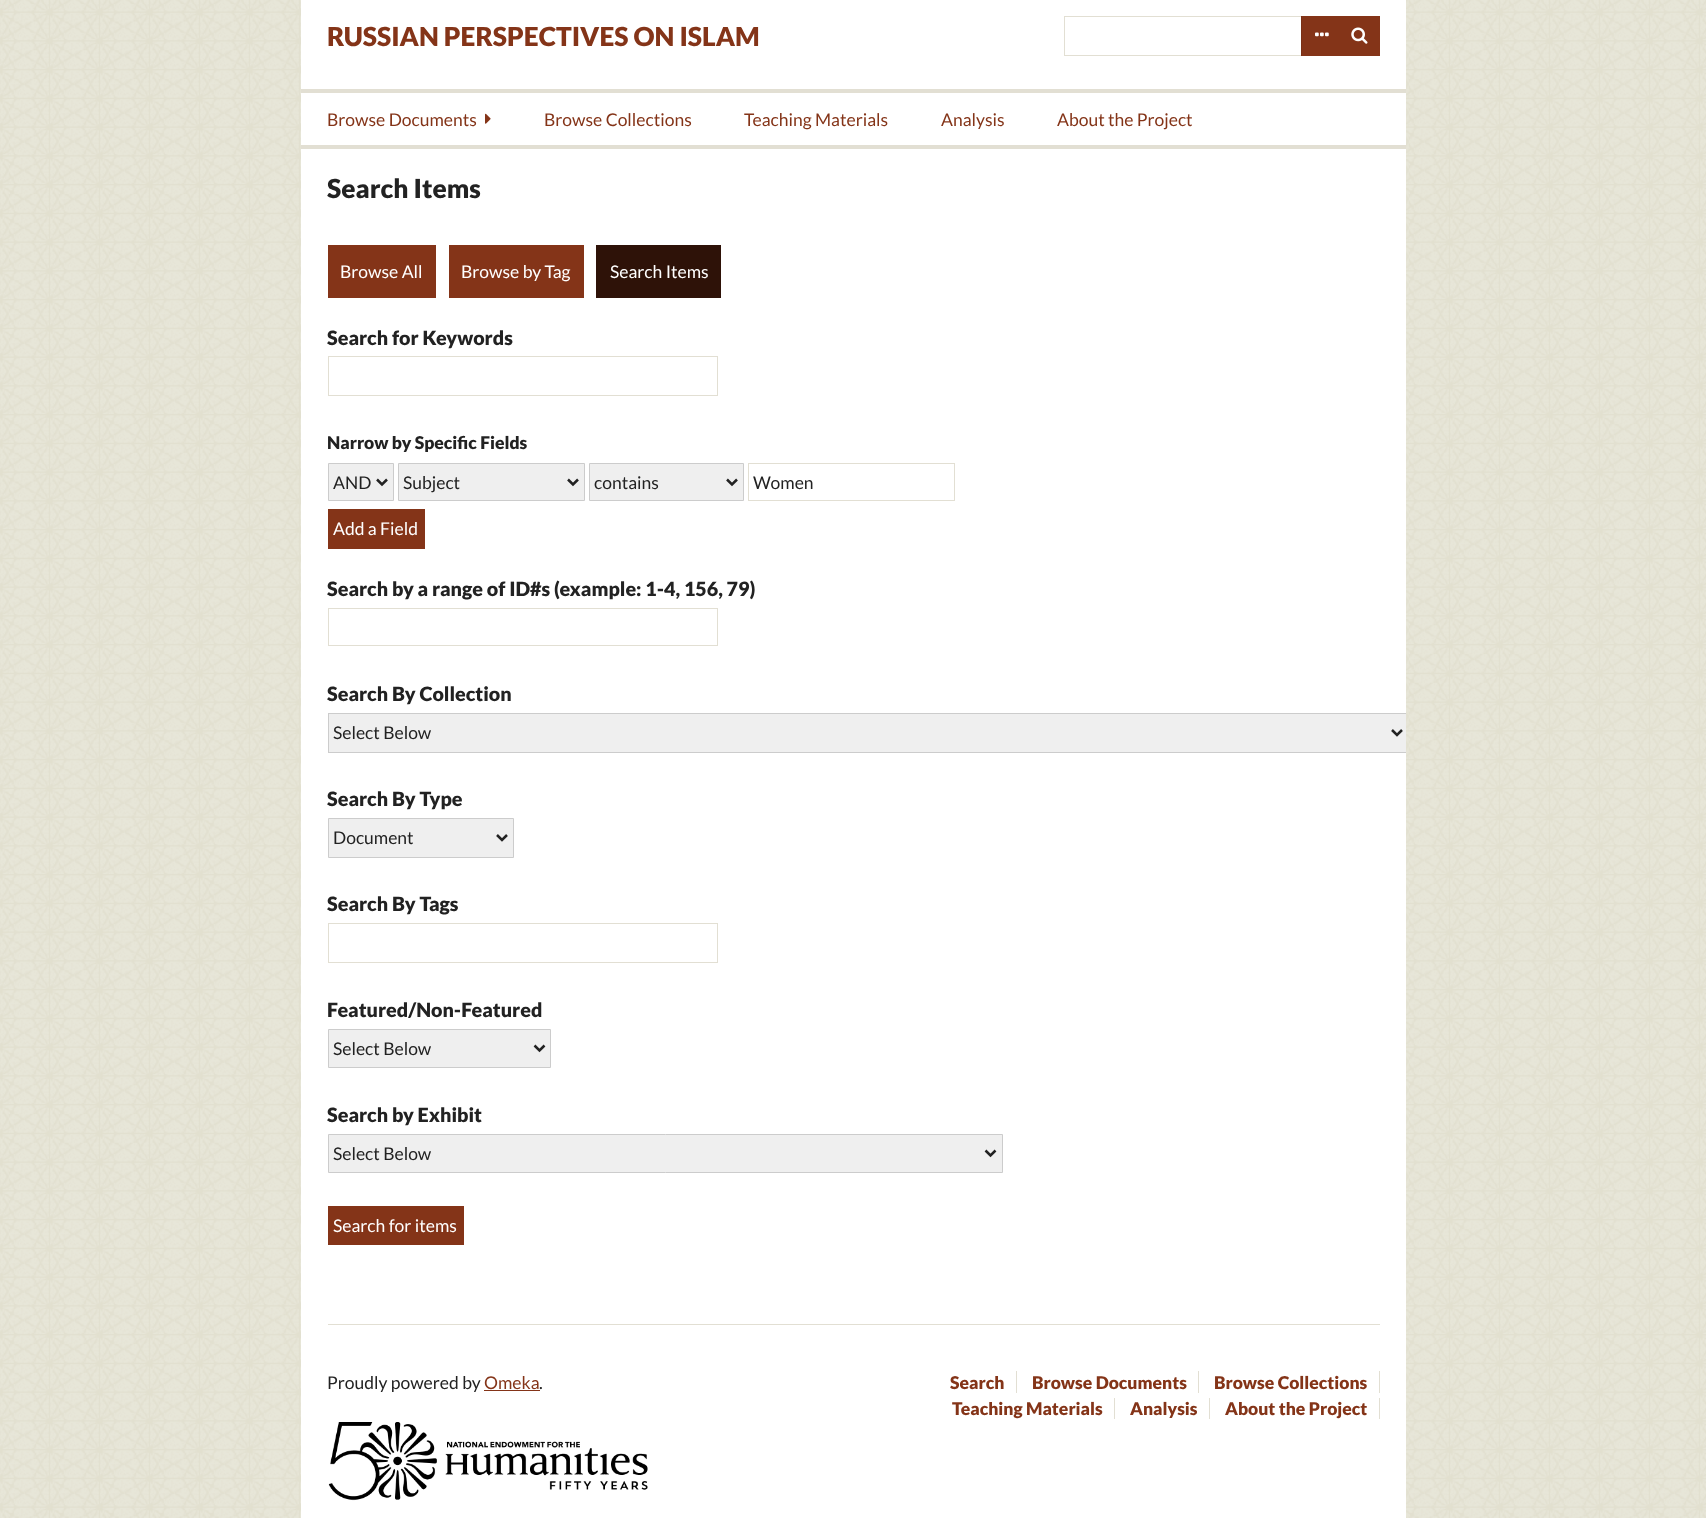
(async () => {
    const canvas = document.querySelector("canvas");
    canvas.width = 1706;
    canvas.height = 1518;
    const context = canvas.getContext("2d");
    context.miterLimit = 4;
    context.fontKerning = "normal";
    function write(s, x, y, font, color) {
        context.font = font;
        context.fillStyle = color;
        context.fillText(s, x, y);
    }
    function block(x, y, w, h, color) {
        context.fillStyle = color;
        context.fillRect(x, y, w, h);
    }
    async function photo(src, x, y, w, h) {
        const img = new Image();
        img.src = src;
        await img.decode();
        context.drawImage(img, x, y, w, h);
    }

    block(0, 0, 1706, 1518, "rgb(255, 255, 255)");
    await photo("media/1.png", 0, 0, 1706, 1518);
    block(301, 0, 1105, 1518, "rgb(255, 255, 255)");
    write("RUSSIAN PERSPECTIVES ON ISLAM", 327, 46, "900 26.25px Lato", "rgb(132, 52, 24)");
    context.strokeStyle = "rgb(226, 223, 211)";
    context.strokeRect(1064.5, 16.5, 315, 39);
    block(1302, 16, 78, 40, "rgb(132, 52, 24)");
    block(1301, 16, 1, 40, "rgb(121, 48, 22)");
    await photo("media/2.png", 1315, 32, 14, 5);
    await photo("media/3.png", 1351, 27, 17, 17);
    block(301, 89, 1105, 4, "rgb(226, 223, 211)");
    block(301, 145, 1105, 4, "rgb(226, 223, 211)");
    write("Browse Documents", 327, 126, "17.5px Lato", "rgb(132, 52, 24)");
    await photo("media/4.png", 485, 113, 6, 11);
    write("Browse Collections", 544, 126, "17.5px Lato", "rgb(132, 52, 24)");
    write("Teaching Materials", 744, 126, "17.5px Lato", "rgb(132, 52, 24)");
    write("Analysis", 941, 126, "17.5px Lato", "rgb(132, 52, 24)");
    write("About the Project", 1057, 126, "17.5px Lato", "rgb(132, 52, 24)");
    block(328, 1324, 1052, 1, "rgb(226, 223, 211)");
    write("Search Items", 327, 198, "900 26.25px Lato", "rgb(34, 34, 34)");
    block(328, 245, 108, 53, "rgb(132, 52, 24)");
    write("Browse All", 340, 278, "17.5px Lato", "rgb(255, 255, 255)");
    block(449, 245, 135, 53, "rgb(132, 52, 24)");
    write("Browse by Tag", 461, 278, "17.5px Lato", "rgb(255, 255, 255)");
    block(596, 245, 125, 53, "rgb(46, 18, 8)");
    write("Search Items", 610, 278, "17.5px Lato", "rgb(255, 255, 255)");
    write("Search for Keywords", 327, 345, "900 19.7px Lato", "rgb(34, 34, 34)");
    context.strokeRect(328.5, 356.5, 389, 39);
    write("Narrow by Specific Fields", 327, 449, "900 17.5px Lato", "rgb(34, 34, 34)");
    context.fillStyle = "rgb(239, 239, 239)";
    context.beginPath();
    context.rect(328.5, 463.5, 65, 37);
    context.fill();
    context.strokeStyle = "rgb(204, 204, 204)";
    context.stroke();
    context.beginPath();
    context.moveTo(377, 479.5);
    context.lineTo(382, 484.5);
    context.lineTo(387, 479.5);
    context.strokeStyle = "rgb(34, 34, 34)";
    context.lineWidth = 2.5;
    context.stroke();
    write("AND", 333, 489, "17.5px Lato", "rgb(34, 34, 34)");
    context.fillStyle = "rgb(239, 239, 239)";
    context.beginPath();
    context.rect(398.5, 463.5, 186, 37);
    context.fill();
    context.strokeStyle = "rgb(204, 204, 204)";
    context.lineWidth = 1;
    context.stroke();
    context.beginPath();
    context.moveTo(568, 479.5);
    context.lineTo(573, 484.5);
    context.lineTo(578, 479.5);
    context.strokeStyle = "rgb(34, 34, 34)";
    context.lineWidth = 2.5;
    context.stroke();
    write("Subject", 403, 489, "17.5px Lato", "rgb(34, 34, 34)");
    context.fillStyle = "rgb(239, 239, 239)";
    context.beginPath();
    context.rect(589.5, 463.5, 154, 37);
    context.fill();
    context.strokeStyle = "rgb(204, 204, 204)";
    context.lineWidth = 1;
    context.stroke();
    context.beginPath();
    context.moveTo(727, 479.5);
    context.lineTo(732, 484.5);
    context.lineTo(737, 479.5);
    context.strokeStyle = "rgb(34, 34, 34)";
    context.lineWidth = 2.5;
    context.stroke();
    write("contains", 594, 489, "17.5px Lato", "rgb(34, 34, 34)");
    context.strokeStyle = "rgb(226, 223, 211)";
    context.lineWidth = 1;
    context.strokeRect(748.5, 463.5, 206, 37);
    write("Women", 753, 489, "17.5px Lato", "rgb(34, 34, 34)");
    block(328, 509, 97, 40, "rgb(132, 52, 24)");
    write("Add a Field", 333, 535, "17.5px Lato", "rgb(255, 255, 255)");
    write("Search by a range of ID#s (example: 1-4, 156, 79)", 327, 596, "900 19.7px Lato", "rgb(34, 34, 34)");
    context.strokeRect(328.5, 608.5, 389, 37);
    write("Search By Collection", 327, 701, "900 19.7px Lato", "rgb(34, 34, 34)");
    block(329, 714, 1077, 38, "rgb(239, 239, 239)");
    context.save();
    context.beginPath();
    context.rect(301, 0, 1105, 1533);
    context.clip();
    context.strokeStyle = "rgb(204, 204, 204)";
    context.strokeRect(328.5, 713.5, 1080, 39);
    context.restore();
    context.beginPath();
    context.moveTo(1392, 730);
    context.lineTo(1397, 735);
    context.lineTo(1402, 730);
    context.strokeStyle = "rgb(34, 34, 34)";
    context.lineWidth = 2.5;
    context.stroke();
    write("Select Below", 333, 739, "17.5px Lato", "rgb(34, 34, 34)");
    write("Search By Type", 327, 806, "900 19.7px Lato", "rgb(34, 34, 34)");
    context.fillStyle = "rgb(239, 239, 239)";
    context.beginPath();
    context.rect(328.5, 818.5, 185, 39);
    context.fill();
    context.strokeStyle = "rgb(204, 204, 204)";
    context.lineWidth = 1;
    context.stroke();
    context.beginPath();
    context.moveTo(497, 835);
    context.lineTo(502, 840);
    context.lineTo(507, 835);
    context.strokeStyle = "rgb(34, 34, 34)";
    context.lineWidth = 2.5;
    context.stroke();
    write("Document", 333, 844, "17.5px Lato", "rgb(34, 34, 34)");
    write("Search By Tags", 327, 911, "900 19.7px Lato", "rgb(34, 34, 34)");
    context.strokeStyle = "rgb(226, 223, 211)";
    context.lineWidth = 1;
    context.strokeRect(328.5, 923.5, 389, 39);
    write("Featured/Non-Featured", 327, 1017, "900 19.7px Lato", "rgb(34, 34, 34)");
    context.fillStyle = "rgb(239, 239, 239)";
    context.beginPath();
    context.rect(328.5, 1029.5, 222, 38);
    context.fill();
    context.strokeStyle = "rgb(204, 204, 204)";
    context.stroke();
    context.beginPath();
    context.moveTo(534.5, 1045.5);
    context.lineTo(539.5, 1050.5);
    context.lineTo(544.5, 1045.5);
    context.strokeStyle = "rgb(34, 34, 34)";
    context.lineWidth = 2.5;
    context.stroke();
    write("Select Below", 333, 1055, "17.5px Lato", "rgb(34, 34, 34)");
    write("Search by Exhibit", 327, 1122, "900 19.7px Lato", "rgb(34, 34, 34)");
    context.fillStyle = "rgb(239, 239, 239)";
    context.beginPath();
    context.rect(328.5, 1134.5, 674, 38);
    context.fill();
    context.strokeStyle = "rgb(204, 204, 204)";
    context.lineWidth = 1;
    context.stroke();
    context.beginPath();
    context.moveTo(985.5, 1150.5);
    context.lineTo(990.5, 1155.5);
    context.lineTo(995.5, 1150.5);
    context.strokeStyle = "rgb(34, 34, 34)";
    context.lineWidth = 2.5;
    context.stroke();
    write("Select Below", 333, 1160, "17.5px Lato", "rgb(34, 34, 34)");
    block(328, 1206, 136, 39, "rgb(132, 52, 24)");
    write("Search for items", 333, 1232, "17.5px Lato", "rgb(255, 255, 255)");
    write("Proudly powered by", 327, 1389, "17.5px Lato", "rgb(34, 34, 34)");
    write("Omeka", 484, 1389, "17.5px Lato", "rgb(132, 52, 24)");
    block(484, 1390, 56, 1, "rgb(132, 52, 24)");
    write(".", 539, 1389, "17.5px Lato", "rgb(34, 34, 34)");
    await photo("media/5.png", 328, 1422, 320, 79);
    write("Search", 950, 1389, "900 17.5px Lato", "rgb(132, 52, 24)");
    block(1016, 1371, 1, 22, "rgb(226, 223, 211)");
    write("Browse Documents", 1032, 1389, "900 17.5px Lato", "rgb(132, 52, 24)");
    block(1198, 1371, 1, 22, "rgb(226, 223, 211)");
    write("Browse Collections", 1214, 1389, "900 17.5px Lato", "rgb(132, 52, 24)");
    block(1379, 1371, 1, 22, "rgb(226, 223, 211)");
    write("Teaching Materials", 952, 1415, "900 17.5px Lato", "rgb(132, 52, 24)");
    block(1114, 1398, 1, 21, "rgb(226, 223, 211)");
    write("Analysis", 1130, 1415, "900 17.5px Lato", "rgb(132, 52, 24)");
    block(1209, 1398, 1, 21, "rgb(226, 223, 211)");
    write("About the Project", 1225, 1415, "900 17.5px Lato", "rgb(132, 52, 24)");
    block(1379, 1398, 1, 21, "rgb(226, 223, 211)");
})();
